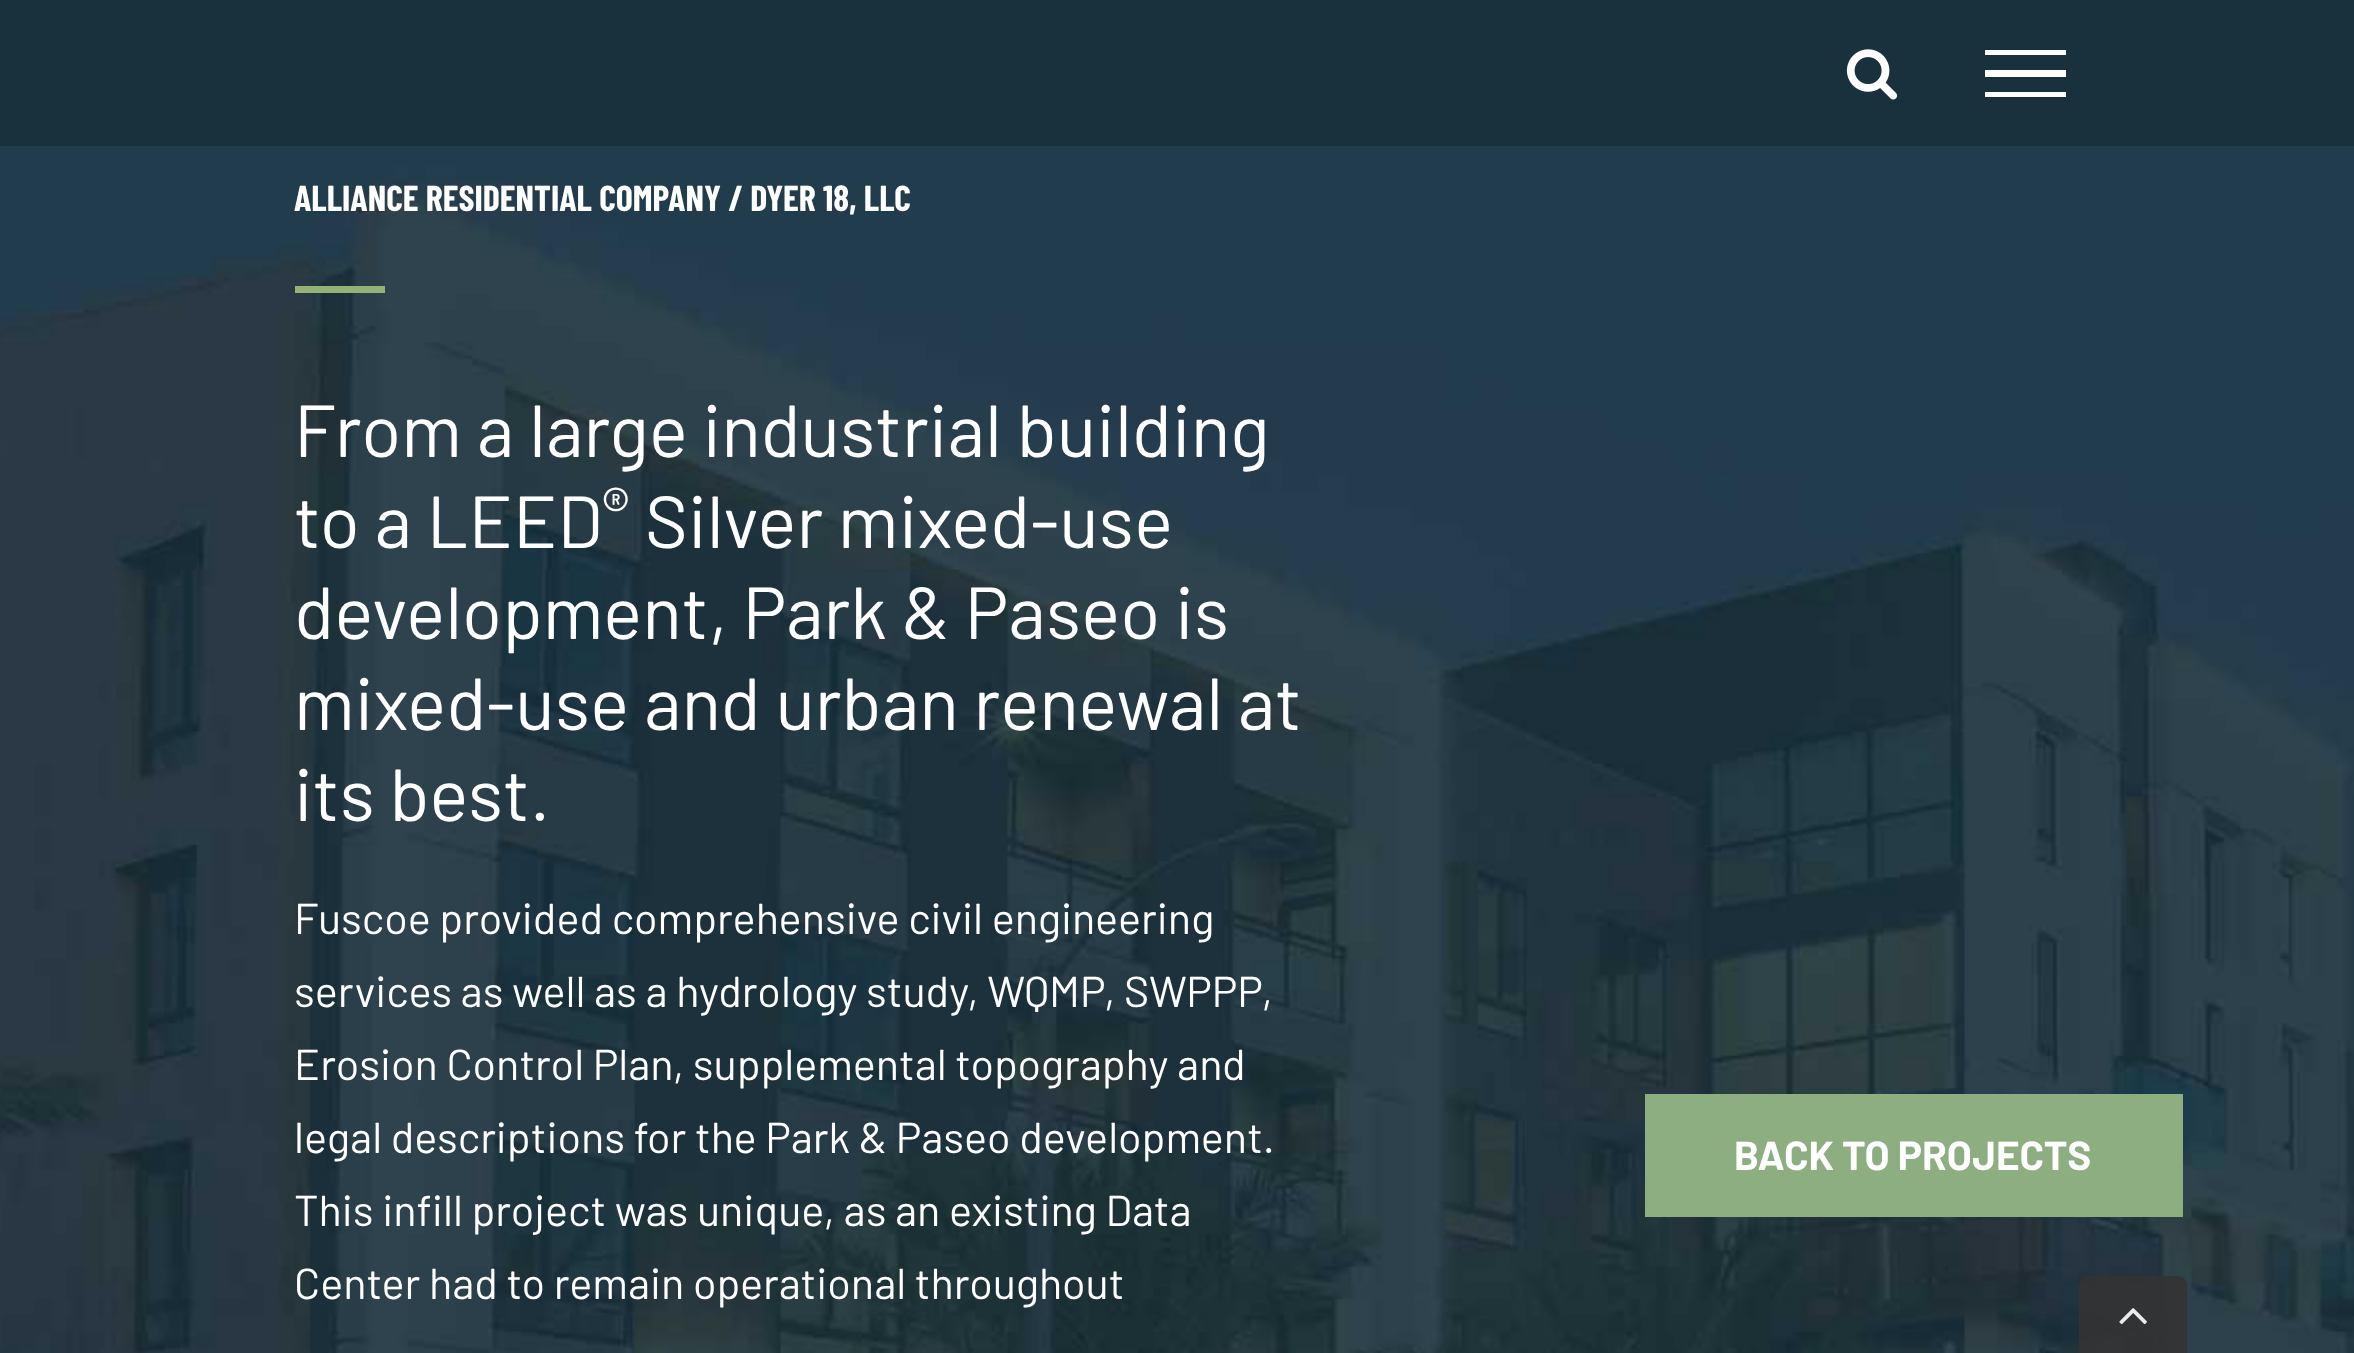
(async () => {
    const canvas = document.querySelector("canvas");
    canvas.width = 2354;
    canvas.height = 1353;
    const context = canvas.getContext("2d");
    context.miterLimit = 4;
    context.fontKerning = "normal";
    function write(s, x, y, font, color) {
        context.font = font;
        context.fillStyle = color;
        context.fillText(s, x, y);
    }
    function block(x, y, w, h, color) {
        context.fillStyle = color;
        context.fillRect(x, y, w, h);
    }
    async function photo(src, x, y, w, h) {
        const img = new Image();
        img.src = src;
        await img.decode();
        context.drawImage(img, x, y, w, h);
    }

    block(0, 0, 2354, 1353, "rgb(255, 255, 255)");
    await photo("media/2.png", 0, 0, 2354, 1353);
    block(0, 0, 2354, 146, "rgba(24, 48, 59, 0.95)");
    await photo("media/1.png", 1846, 49, 52, 51);
    block(1985, 50, 81, 5, "rgb(255, 255, 255)");
    block(1985, 70, 81, 7, "rgb(255, 255, 255)");
    block(1985, 92, 81, 5, "rgb(255, 255, 255)");
    write("ALLIANCE RESIDENTIAL COMPANY / DYER 18, LLC", 294, 211, "bold 36px Barlow Condensed", "rgb(255, 255, 255)");
    block(295, 286, 90, 7, "rgb(148, 178, 119)");
    write("From a large industrial building", 294, 457, "73.5px Barlow", "rgb(255, 255, 255)");
    write("to a LEED", 294, 548, "73.5px Barlow", "rgb(255, 255, 255)");
    write("®", 602, 531, "61px Barlow", "rgb(255, 255, 255)");
    write("Silver mixed-use", 645, 548, "73.5px Barlow", "rgb(255, 255, 255)");
    write("development, Park & Paseo is", 294, 639, "73.5px Barlow", "rgb(255, 255, 255)");
    write("mixed-use and urban renewal at", 294, 730, "73.5px Barlow", "rgb(255, 255, 255)");
    write("its best.", 294, 821, "73.5px Barlow", "rgb(255, 255, 255)");
    write("Fuscoe provided comprehensive civil engineering", 294, 934, "43.2px Barlow", "rgb(255, 255, 255)");
    write("services as well as a hydrology study, WQMP, SWPPP,", 294, 1007, "43.2px Barlow", "rgb(255, 255, 255)");
    write("Erosion Control Plan, supplemental topography and", 294, 1080, "43.2px Barlow", "rgb(255, 255, 255)");
    write("legal descriptions for the Park & Paseo development.", 294, 1153, "43.2px Barlow", "rgb(255, 255, 255)");
    write("This infill project was unique, as an existing Data", 294, 1226, "43.2px Barlow", "rgb(255, 255, 255)");
    write("Center had to remain operational throughout", 294, 1299, "43.2px Barlow", "rgb(255, 255, 255)");
    block(1645, 1094, 538, 123, "rgb(141, 174, 129)");
    write("BACK TO PROJECTS", 1734, 1170, "bold 40.5px Barlow", "rgb(255, 255, 255)");
    context.fillStyle = "rgba(51, 51, 51, 0.9)";
    context.beginPath();
    context.moveTo(2088, 1276);
    context.lineTo(2178, 1276);
    context.bezierCurveTo(2183, 1276, 2187, 1280, 2187, 1285);
    context.lineTo(2187, 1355);
    context.lineTo(2079, 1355);
    context.lineTo(2079, 1285);
    context.bezierCurveTo(2079, 1280, 2083, 1276, 2088, 1276);
    context.closePath();
    context.fill();
    await photo("media/3.png", 2119, 1308, 28, 17);
})();
